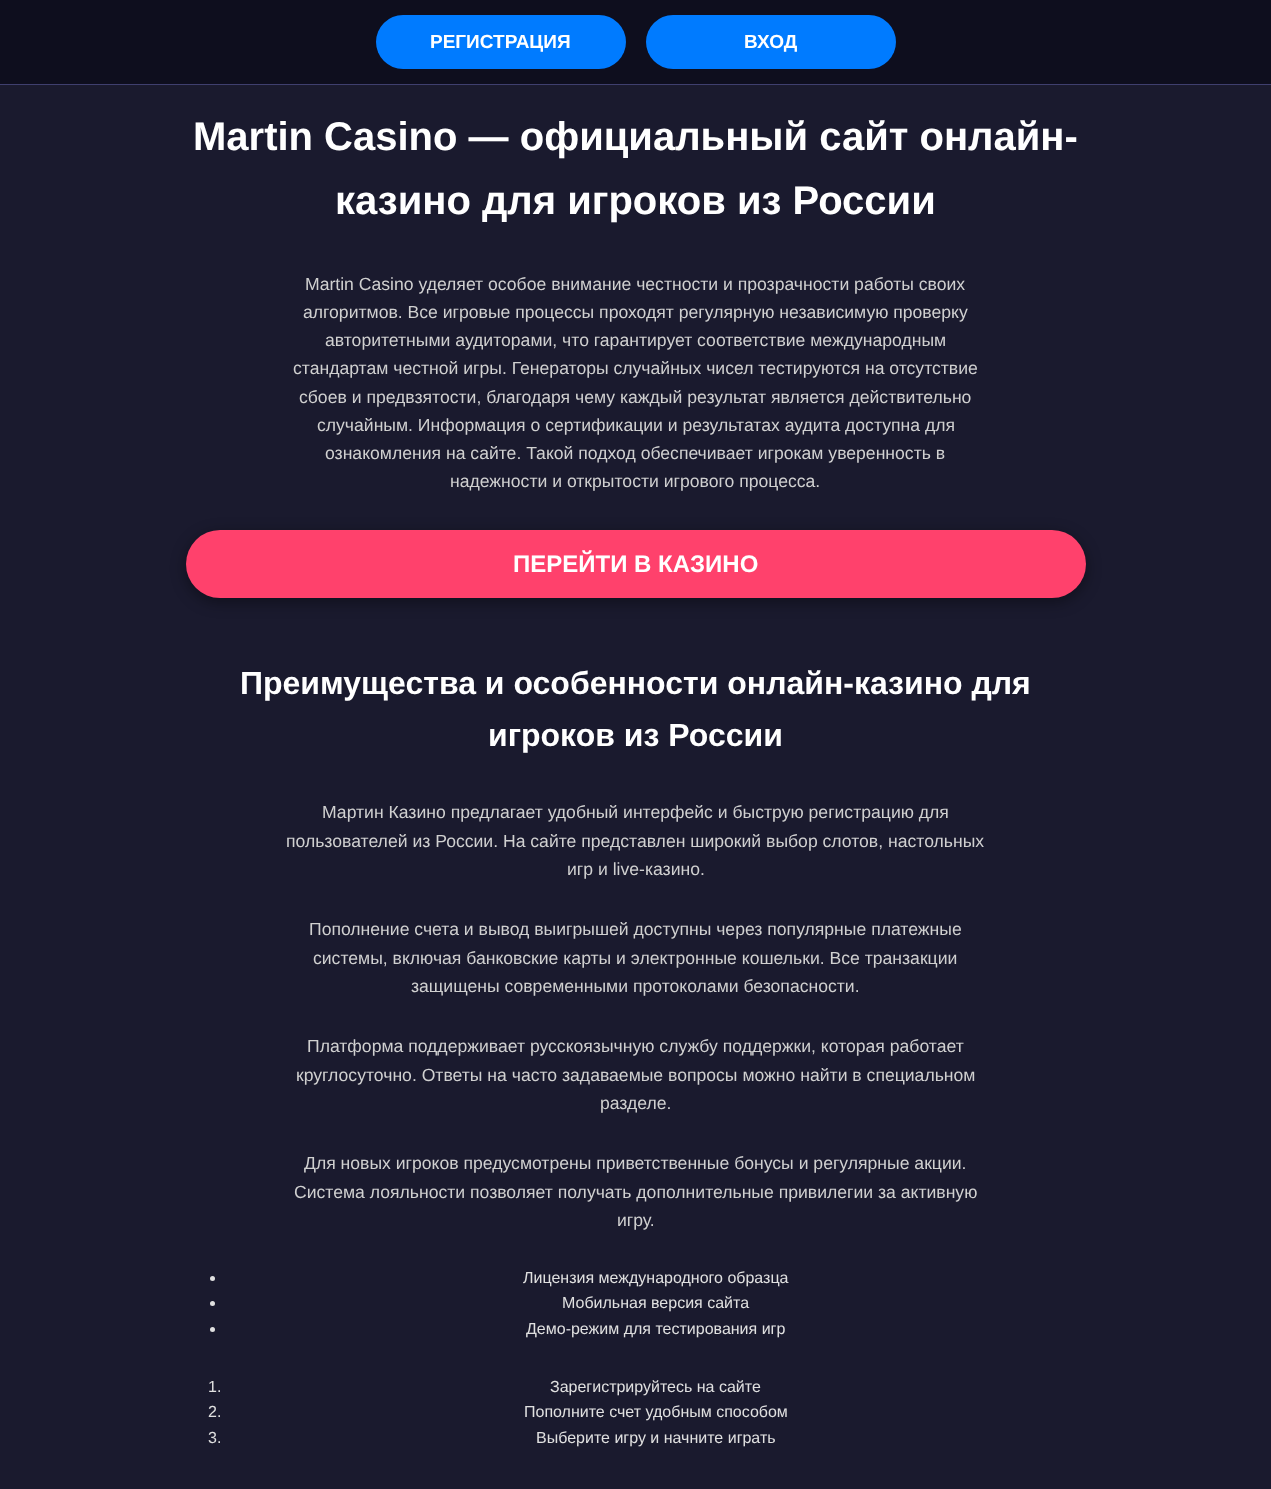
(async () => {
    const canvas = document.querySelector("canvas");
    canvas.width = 1271;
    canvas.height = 1489;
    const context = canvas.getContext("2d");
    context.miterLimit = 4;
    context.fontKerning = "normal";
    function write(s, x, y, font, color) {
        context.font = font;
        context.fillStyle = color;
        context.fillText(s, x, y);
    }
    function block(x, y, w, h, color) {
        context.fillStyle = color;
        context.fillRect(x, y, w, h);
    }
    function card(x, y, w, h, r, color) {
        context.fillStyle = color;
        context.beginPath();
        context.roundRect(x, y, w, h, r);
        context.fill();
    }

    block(0, 0, 1271, 1489, "rgb(26, 26, 46)");
    block(0, 0, 1271, 84, "rgb(14, 14, 30)");
    block(0, 84, 1271, 1, "rgb(63, 63, 110)");
    card(376, 15, 250, 54, 27, "rgb(0, 123, 255)");
    write("РЕГИСТРАЦИЯ", 430, 48, "bold 19px Liberation Sans", "rgb(255, 255, 255)");
    card(646, 15, 250, 54, 27, "rgb(0, 123, 255)");
    write("ВХОД", 744, 48, "bold 19px Liberation Sans", "rgb(255, 255, 255)");
    write("Martin Casino — официальный сайт онлайн-", 193, 150, "bold 40px Liberation Sans", "rgb(255, 255, 255)");
    write("казино для игроков из России", 335, 214, "bold 40px Liberation Sans", "rgb(255, 255, 255)");
    write("Martin Casino уделяет особое внимание честности и прозрачности работы своих", 305, 290, "17.6px Liberation Sans", "rgb(208, 208, 208)");
    write("алгоритмов. Все игровые процессы проходят регулярную независимую проверку", 303, 318, "17.6px Liberation Sans", "rgb(208, 208, 208)");
    write("авторитетными аудиторами, что гарантирует соответствие международным", 325, 346, "17.6px Liberation Sans", "rgb(208, 208, 208)");
    write("стандартам честной игры. Генераторы случайных чисел тестируются на отсутствие", 293, 374, "17.6px Liberation Sans", "rgb(208, 208, 208)");
    write("сбоев и предвзятости, благодаря чему каждый результат является действительно", 299, 403, "17.6px Liberation Sans", "rgb(208, 208, 208)");
    write("случайным. Информация о сертификации и результатах аудита доступна для", 317, 431, "17.6px Liberation Sans", "rgb(208, 208, 208)");
    write("ознакомления на сайте. Такой подход обеспечивает игрокам уверенность в", 325, 459, "17.6px Liberation Sans", "rgb(208, 208, 208)");
    write("надежности и открытости игрового процесса.", 450, 487, "17.6px Liberation Sans", "rgb(208, 208, 208)");
    context.fillStyle = "rgba(0, 0, 0, 0.4)";
    context.filter = "blur(7.5px)";
    context.beginPath();
    context.roundRect(186, 534, 900, 68, 34);
    context.fill();
    context.filter = "none";
    card(186, 530, 900, 68, 34, "rgb(255, 65, 108)");
    write("ПЕРЕЙТИ В КАЗИНО", 513, 572, "bold 24px Liberation Sans", "rgb(255, 255, 255)");
    write("Преимущества и особенности онлайн-казино для", 240, 694, "bold 32px Liberation Sans", "rgb(255, 255, 255)");
    write("игроков из России", 488, 746, "bold 32px Liberation Sans", "rgb(255, 255, 255)");
    write("Мартин Казино предлагает удобный интерфейс и быструю регистрацию для", 322, 818, "17.6px Liberation Sans", "rgb(208, 208, 208)");
    write("пользователей из России. На сайте представлен широкий выбор слотов, настольных", 286, 847, "17.6px Liberation Sans", "rgb(208, 208, 208)");
    write("игр и live-казино.", 567, 875, "17.6px Liberation Sans", "rgb(208, 208, 208)");
    write("Пополнение счета и вывод выигрышей доступны через популярные платежные", 309, 935, "17.6px Liberation Sans", "rgb(208, 208, 208)");
    write("системы, включая банковские карты и электронные кошельки. Все транзакции", 313, 964, "17.6px Liberation Sans", "rgb(208, 208, 208)");
    write("защищены современными протоколами безопасности.", 411, 992, "17.6px Liberation Sans", "rgb(208, 208, 208)");
    write("Платформа поддерживает русскоязычную службу поддержки, которая работает", 307, 1052, "17.6px Liberation Sans", "rgb(208, 208, 208)");
    write("круглосуточно. Ответы на часто задаваемые вопросы можно найти в специальном", 296, 1081, "17.6px Liberation Sans", "rgb(208, 208, 208)");
    write("разделе.", 600, 1109, "17.6px Liberation Sans", "rgb(208, 208, 208)");
    write("Для новых игроков предусмотрены приветственные бонусы и регулярные акции.", 304, 1169, "17.6px Liberation Sans", "rgb(208, 208, 208)");
    write("Система лояльности позволяет получать дополнительные привилегии за активную", 294, 1198, "17.6px Liberation Sans", "rgb(208, 208, 208)");
    write("игру.", 617, 1226, "17.6px Liberation Sans", "rgb(208, 208, 208)");
    context.fillStyle = "rgb(224, 224, 224)";
    context.beginPath();
    context.arc(212.5, 1278.5, 2.5, 0, Math.PI * 2);
    context.fill();
    write("Лицензия международного образца", 523, 1283, "16px Liberation Sans", "rgb(224, 224, 224)");
    context.beginPath();
    context.arc(212.5, 1303.5, 2.5, 0, Math.PI * 2);
    context.fill();
    write("Мобильная версия сайта", 562, 1308, "16px Liberation Sans", "rgb(224, 224, 224)");
    context.beginPath();
    context.arc(212.5, 1329.5, 2.5, 0, Math.PI * 2);
    context.fill();
    write("Демо-режим для тестирования игр", 526, 1334, "16px Liberation Sans", "rgb(224, 224, 224)");
    write("1.", 208, 1392, "16px Liberation Sans", "rgb(224, 224, 224)");
    write("Зарегистрируйтесь на сайте", 550, 1392, "16px Liberation Sans", "rgb(224, 224, 224)");
    write("2.", 208, 1417, "16px Liberation Sans", "rgb(224, 224, 224)");
    write("Пополните счет удобным способом", 524, 1417, "16px Liberation Sans", "rgb(224, 224, 224)");
    write("3.", 208, 1443, "16px Liberation Sans", "rgb(224, 224, 224)");
    write("Выберите игру и начните играть", 536, 1443, "16px Liberation Sans", "rgb(224, 224, 224)");
})();
